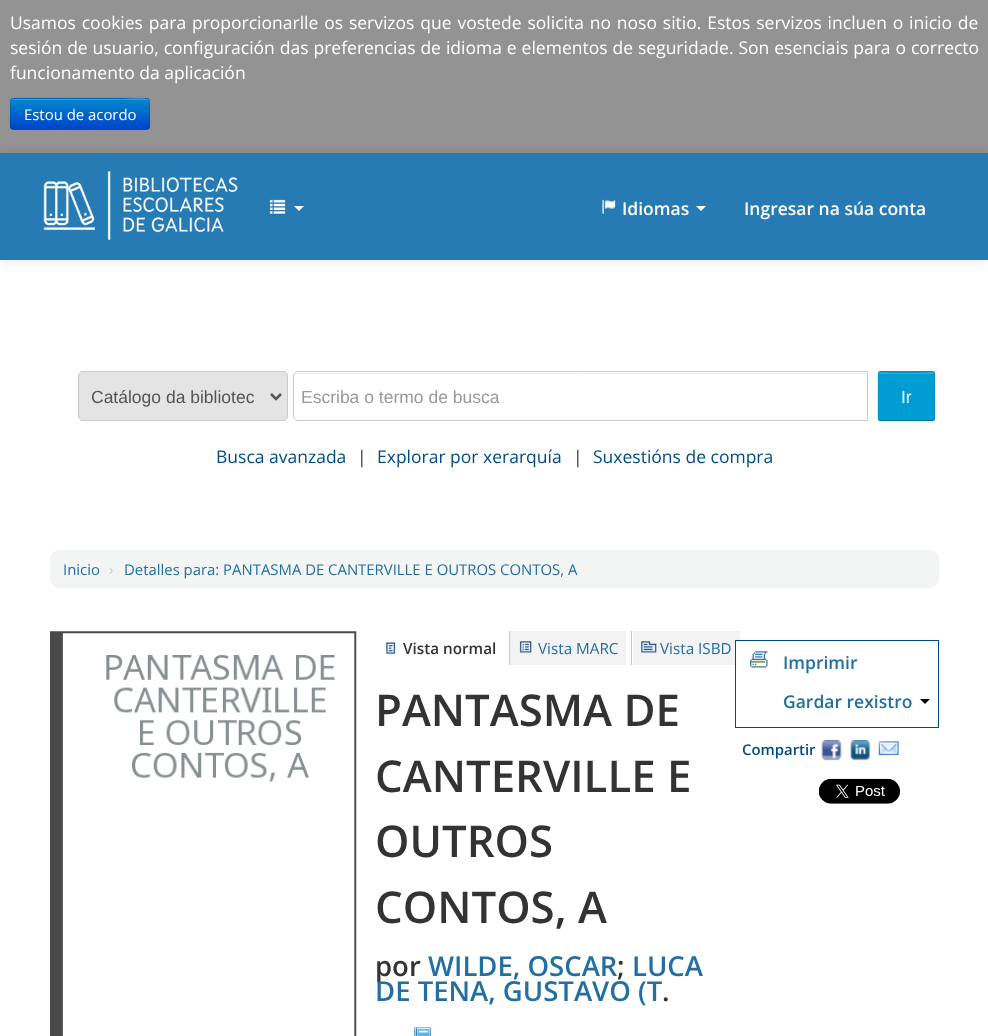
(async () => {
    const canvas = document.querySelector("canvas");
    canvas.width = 988;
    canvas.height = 1036;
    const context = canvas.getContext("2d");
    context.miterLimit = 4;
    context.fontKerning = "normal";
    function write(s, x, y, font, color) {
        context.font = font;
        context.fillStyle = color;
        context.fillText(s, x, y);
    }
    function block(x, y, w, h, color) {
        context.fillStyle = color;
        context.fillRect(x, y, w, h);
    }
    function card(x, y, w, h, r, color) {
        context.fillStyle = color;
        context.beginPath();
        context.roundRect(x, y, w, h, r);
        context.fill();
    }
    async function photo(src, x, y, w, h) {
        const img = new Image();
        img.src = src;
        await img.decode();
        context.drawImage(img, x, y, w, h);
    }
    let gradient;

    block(0, 0, 988, 1036, "rgb(255, 255, 255)");
    block(0, 0, 988, 153, "rgb(147, 147, 147)");
    context.wordSpacing = "1.3px";
    write("Usamos cookies para proporcionarlle os servizos que vostede solicita no noso sitio. Estos servizos incluen o inicio de", 10, 29, "17.5px Open Sans", "rgb(255, 255, 255)");
    context.wordSpacing = "0.4px";
    write("sesión de usuario, configuración das preferencias de idioma e elementos de seguridade. Son esenciais para o correcto", 10, 54, "17.5px Open Sans", "rgb(255, 255, 255)");
    context.wordSpacing = "0px";
    write("funcionamento da aplicación", 10, 79, "17.5px Open Sans", "rgb(255, 255, 255)");
    card(10, 98, 140, 32, 4, "rgb(0, 109, 204)");
    context.save();
    context.beginPath();
    context.roundRect(10, 98, 140, 32, 4);
    context.clip();
    gradient = context.createLinearGradient(80, 99, 80, 129);
    gradient.addColorStop(0, "rgb(0, 136, 204)");
    gradient.addColorStop(1, "rgb(0, 68, 204)");
    context.fillStyle = gradient;
    context.fillRect(10, 99, 140, 30);
    context.restore();
    context.fillStyle = "rgba(255, 255, 255, 0.2)";
    context.beginPath();
    context.moveTo(14, 100);
    context.lineTo(146, 100);
    context.bezierCurveTo(148, 100, 149, 101, 149, 102);
    context.bezierCurveTo(149, 95, 128, 99, 124, 99);
    context.lineTo(14, 99);
    context.lineTo(12, 100);
    context.lineTo(11, 102);
    context.bezierCurveTo(11, 101, 12, 100, 14, 100);
    context.closePath();
    context.fill();
    context.beginPath();
    context.moveTo(148.5, 128.5);
    context.lineTo(146, 129.5);
    context.lineTo(14, 129.5);
    context.lineTo(11.5, 128.5);
    context.strokeStyle = "rgba(0, 0, 0, 0.25)";
    context.lineWidth = 1.2;
    context.stroke();
    context.beginPath();
    context.moveTo(11.5, 128.5);
    context.bezierCurveTo(9.5, 126.5, 10.5, 116.5, 10.5, 114);
    context.lineTo(10.5, 105.5);
    context.bezierCurveTo(10.5, 103, 10, 98, 14, 98);
    context.lineTo(146, 98);
    context.bezierCurveTo(150, 98, 149.5, 103, 149.5, 105.5);
    context.lineTo(149.5, 114);
    context.bezierCurveTo(149.5, 116.5, 150.5, 126.5, 148.5, 128.5);
    context.strokeStyle = "rgba(0, 0, 0, 0.1)";
    context.stroke();
    write("Estou de acordo", 24, 120, "14.9px Open Sans", "rgb(255, 255, 255)");
    context.fillStyle = "rgba(0, 0, 0, 0.1)";
    context.filter = "blur(6px)";
    context.beginPath();
    context.rect(0, 154, 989, 107);
    context.fill();
    context.filter = "none";
    block(0, 153, 988, 107, "rgb(39, 123, 181)");
    await photo("media/1.png", 43, 171, 195, 69);
    await photo("media/2.png", 269, 199, 17, 16);
    context.fillStyle = "rgb(255, 255, 255)";
    context.beginPath();
    context.moveTo(294, 206);
    context.lineTo(304, 206);
    context.lineTo(299, 211);
    context.closePath();
    context.fill();
    await photo("media/3.png", 602, 199, 14, 16);
    write("Idiomas", 622, 215, "600 17.5px Open Sans", "rgb(255, 255, 255)");
    context.beginPath();
    context.moveTo(696, 206);
    context.lineTo(706, 206);
    context.lineTo(701, 211);
    context.closePath();
    context.fill();
    write("Ingresar na súa conta", 744, 215, "600 17.5px Open Sans", "rgb(255, 255, 255)");
    context.fillStyle = "rgb(228, 228, 228)";
    context.beginPath();
    context.roundRect(78.5, 371.5, 209, 49, 4.5);
    context.fill();
    context.strokeStyle = "rgb(202, 200, 200)";
    context.lineWidth = 1;
    context.stroke();
    context.beginPath();
    context.moveTo(271, 394);
    context.lineTo(276, 399);
    context.lineTo(281, 394);
    context.strokeStyle = "rgb(85, 85, 85)";
    context.lineWidth = 2.5;
    context.stroke();
    write("Catálogo da bibliotec", 91, 403, "17.5px Liberation Sans", "rgb(85, 85, 85)");
    context.fillStyle = "rgb(236, 236, 236)";
    context.beginPath();
    context.moveTo(298, 374);
    context.lineTo(866, 374);
    context.lineTo(866, 373);
    context.lineTo(298, 373);
    context.bezierCurveTo(295, 373, 294, 375, 294, 378);
    context.bezierCurveTo(294, 375, 295, 374, 298, 374);
    context.closePath();
    context.fill();
    context.beginPath();
    context.roundRect(293.5, 371.5, 574, 49, [4.5, 0, 0, 4.5]);
    context.strokeStyle = "rgb(204, 204, 204)";
    context.lineWidth = 1;
    context.stroke();
    write("Escriba o termo de busca", 301, 403, "17.5px Liberation Sans", "rgb(153, 153, 153)");
    context.fillStyle = "rgba(0, 0, 0, 0.05)";
    context.filter = "blur(1px)";
    context.beginPath();
    context.roundRect(878, 373, 57, 50, 2.5);
    context.fill();
    context.filter = "none";
    card(878, 371, 57, 50, 2.5, "rgb(0, 156, 212)");
    context.fillStyle = "rgb(51, 176, 221)";
    context.beginPath();
    context.moveTo(880, 374);
    context.lineTo(932, 374);
    context.bezierCurveTo(933, 374, 934, 374, 934, 375);
    context.bezierCurveTo(934, 370, 928, 373, 924, 373);
    context.lineTo(889, 373);
    context.bezierCurveTo(885, 373, 879, 370, 879, 375);
    context.bezierCurveTo(879, 374, 879, 374, 880, 374);
    context.closePath();
    context.fill();
    context.beginPath();
    context.moveTo(934, 420);
    context.lineTo(932.5, 420.5);
    context.lineTo(880, 420.5);
    context.lineTo(878.5, 420);
    context.strokeStyle = "rgba(0, 0, 0, 0.25)";
    context.lineWidth = 1.2;
    context.stroke();
    context.beginPath();
    context.moveTo(878.5, 420);
    context.bezierCurveTo(877, 418.5, 878, 399.5, 878, 396);
    context.lineTo(878, 381);
    context.bezierCurveTo(878, 369.5, 876.5, 372, 889, 372);
    context.lineTo(924, 372);
    context.bezierCurveTo(936, 372, 934.5, 369.5, 934.5, 381);
    context.lineTo(934.5, 396);
    context.bezierCurveTo(934.5, 399.5, 935.5, 418.5, 934, 420);
    context.strokeStyle = "rgba(0, 0, 0, 0.1)";
    context.stroke();
    write("Ir", 901, 403, "17.5px Liberation Sans", "rgb(255, 255, 255)");
    write("Busca avanzada", 216, 463, "17.5px Open Sans", "rgb(0, 77, 131)");
    write("|", 357, 463, "17.5px Open Sans", "rgb(51, 51, 51)");
    write("Explorar por xerarquía", 377, 463, "17.5px Open Sans", "rgb(0, 77, 131)");
    write("|", 573, 463, "17.5px Open Sans", "rgb(51, 51, 51)");
    write("Suxestións de compra", 593, 463, "17.5px Open Sans", "rgb(0, 77, 131)");
    card(50, 550, 889, 38, 9, "rgb(243, 245, 245)");
    write("Inicio", 63, 575, "14.9px Open Sans", "rgb(35, 111, 161)");
    write("›", 109, 575, "14.9px Open Sans", "rgb(204, 204, 204)");
    write("Detalles para: PANTASMA DE CANTERVILLE E OUTROS CONTOS, A", 124, 575, "14.9px Open Sans", "rgb(35, 111, 161)");
    await photo("media/4.png", 50, 631, 307, 405);
    await photo("media/5.png", 386, 642, 10, 12);
    write("Vista normal", 403, 654, "600 15.25px Open Sans", "rgb(51, 51, 51)");
    block(510, 631, 116, 34, "rgb(243, 243, 243)");
    block(509, 631, 1, 34, "rgb(201, 201, 201)");
    await photo("media/6.png", 519, 641, 13, 12);
    write("Vista MARC", 538, 654, "15.25px Open Sans", "rgb(35, 111, 161)");
    block(633, 631, 107, 34, "rgb(243, 243, 243)");
    block(631, 631, 1, 34, "rgb(201, 201, 201)");
    await photo("media/7.png", 641, 641, 16, 12);
    write("Vista ISBD", 660, 654, "15.25px Open Sans", "rgb(35, 111, 161)");
    write("PANTASMA DE", 375, 726, "600 43.75px Open Sans", "rgb(51, 51, 51)");
    write("CANTERVILLE E", 375, 792, "600 43.75px Open Sans", "rgb(51, 51, 51)");
    write("OUTROS", 375, 857, "600 43.75px Open Sans", "rgb(51, 51, 51)");
    write("CONTOS, A", 375, 923, "600 43.75px Open Sans", "rgb(51, 51, 51)");
    write("por", 375, 976, "600 27.5px Open Sans", "rgb(51, 51, 51)");
    write("WILDE, OSCAR", 428, 976, "600 27.5px Open Sans", "rgb(35, 111, 161)");
    write(";", 617, 976, "600 27.5px Open Sans", "rgb(51, 51, 51)");
    write("LUCA", 632, 976, "600 27.5px Open Sans", "rgb(35, 111, 161)");
    write("DE TENA, GUSTAVO (T", 375, 1001, "600 27.5px Open Sans", "rgb(35, 111, 161)");
    write(".", 662, 1001, "600 27.5px Open Sans", "rgb(51, 51, 51)");
    await photo("media/8.png", 414, 1027, 17, 9);
    block(736, 641, 4, 24, "rgb(255, 255, 255)");
    context.strokeStyle = "rgb(0, 77, 131)";
    context.lineWidth = 1;
    context.strokeRect(735.5, 640.5, 203, 87);
    await photo("media/9.png", 749, 651, 19, 17);
    write("Imprimir", 783, 669, "600 17.5px Open Sans", "rgb(35, 111, 161)");
    write("Gardar rexistro", 783, 708, "600 17.5px Open Sans", "rgb(35, 111, 161)");
    context.fillStyle = "rgb(0, 0, 0)";
    context.beginPath();
    context.moveTo(920, 699);
    context.lineTo(930, 699);
    context.lineTo(925, 704);
    context.closePath();
    context.fill();
    write("Compartir", 742, 755, "600 14.9px Open Sans", "rgb(0, 77, 131)");
    await photo("media/10.png", 821, 739, 21, 22);
    await photo("media/11.png", 850, 739, 21, 22);
    await photo("media/12.png", 878, 741, 21, 15);
    await photo("media/13.png", 818, 778, 82, 26);
})();
